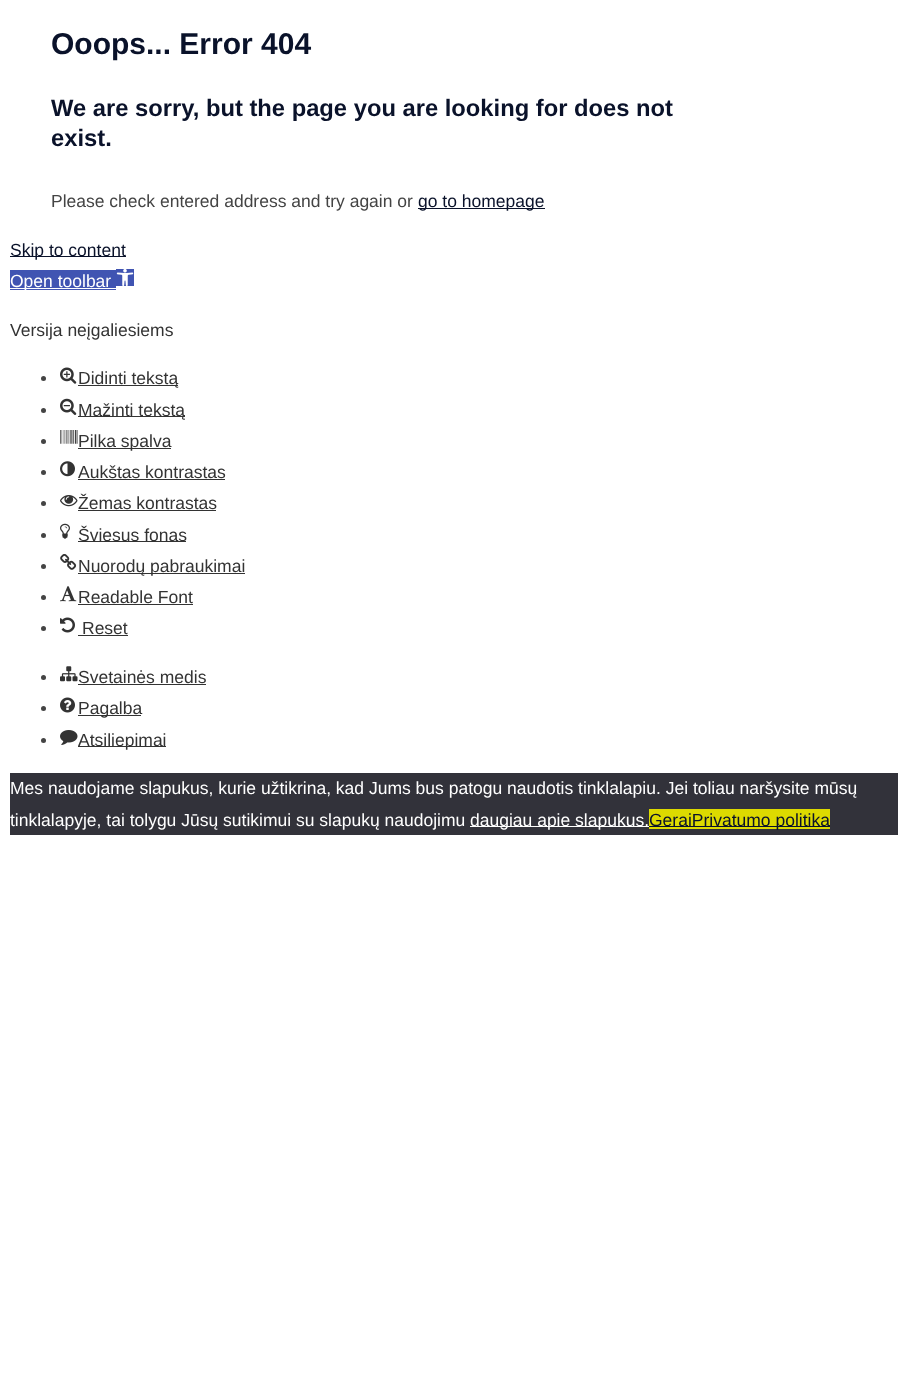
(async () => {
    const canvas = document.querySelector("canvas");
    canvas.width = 907;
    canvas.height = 1375;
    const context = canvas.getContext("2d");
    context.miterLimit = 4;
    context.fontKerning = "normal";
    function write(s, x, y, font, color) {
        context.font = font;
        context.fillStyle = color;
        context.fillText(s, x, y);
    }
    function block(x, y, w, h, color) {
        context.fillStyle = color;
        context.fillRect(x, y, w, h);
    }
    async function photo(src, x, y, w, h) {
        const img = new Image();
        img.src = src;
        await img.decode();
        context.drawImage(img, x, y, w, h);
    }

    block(0, 0, 907, 1375, "rgb(255, 255, 255)");
    write("Ooops... Error 404", 51, 54, "bold 30px Liberation Sans", "rgb(10, 18, 42)");
    write("We are sorry, but the page you are looking for does not", 51, 116, "bold 23.75px Liberation Sans", "rgb(10, 18, 42)");
    write("exist.", 51, 146, "bold 23.75px Liberation Sans", "rgb(10, 18, 42)");
    write("Please check entered address and try again or", 51, 207, "17.5px Liberation Sans", "rgb(68, 68, 68)");
    block(418, 208, 127, 1, "rgb(10, 18, 42)");
    write("go to homepage", 418, 207, "17.5px Liberation Sans", "rgb(10, 18, 42)");
    block(10, 256, 116, 1, "rgb(10, 18, 42)");
    write("Skip to content", 10, 256, "17.5px Liberation Sans", "rgb(10, 18, 42)");
    block(10, 270, 106, 20, "rgb(64, 84, 178)");
    block(10, 288, 106, 1, "rgb(255, 255, 255)");
    write("Open toolbar", 10, 287, "17.5px Liberation Sans", "rgb(255, 255, 255)");
    block(116, 269, 18, 17, "rgb(64, 84, 178)");
    await photo("media/1.png", 116, 269, 18, 17);
    write("Versija neįgaliesiems", 10, 336, "17.5px Liberation Sans", "rgb(51, 51, 51)");
    context.fillStyle = "rgb(68, 68, 68)";
    context.beginPath();
    context.arc(43.5, 378.5, 2.5, 0, Math.PI * 2);
    context.fill();
    await photo("media/2.png", 60, 367, 17, 17);
    block(78, 385, 100, 1, "rgb(51, 51, 51)");
    write("Didinti tekstą", 78, 384, "17.5px Liberation Sans", "rgb(51, 51, 51)");
    context.fillStyle = "rgb(68, 68, 68)";
    context.beginPath();
    context.arc(43.5, 410.5, 2.5, 0, Math.PI * 2);
    context.fill();
    await photo("media/3.png", 60, 398, 17, 17);
    block(78, 416, 107, 1, "rgb(51, 51, 51)");
    write("Mažinti tekstą", 78, 416, "17.5px Liberation Sans", "rgb(51, 51, 51)");
    context.fillStyle = "rgb(68, 68, 68)";
    context.beginPath();
    context.arc(43.5, 441.5, 2.5, 0, Math.PI * 2);
    context.fill();
    await photo("media/4.png", 60, 430, 18, 14);
    block(78, 448, 93, 1, "rgb(51, 51, 51)");
    write("Pilka spalva", 78, 447, "17.5px Liberation Sans", "rgb(51, 51, 51)");
    context.fillStyle = "rgb(68, 68, 68)";
    context.beginPath();
    context.arc(43.5, 472.5, 2.5, 0, Math.PI * 2);
    context.fill();
    await photo("media/5.png", 60, 461, 15, 16);
    write("Aukštas kontrastas", 78, 478, "17.5px Liberation Sans", "rgb(51, 51, 51)");
    block(78, 479, 147, 1, "rgb(51, 51, 51)");
    context.fillStyle = "rgb(68, 68, 68)";
    context.beginPath();
    context.arc(43.5, 503.5, 2.5, 0, Math.PI * 2);
    context.fill();
    await photo("media/6.png", 60, 495, 18, 12);
    write("Žemas kontrastas", 78, 509, "17.5px Liberation Sans", "rgb(51, 51, 51)");
    block(78, 510, 138, 1, "rgb(51, 51, 51)");
    context.fillStyle = "rgb(68, 68, 68)";
    context.beginPath();
    context.arc(43.5, 535.5, 2.5, 0, Math.PI * 2);
    context.fill();
    await photo("media/7.png", 60, 523, 10, 16);
    block(78, 541, 108, 1, "rgb(51, 51, 51)");
    write("Šviesus fonas", 78, 541, "17.5px Liberation Sans", "rgb(51, 51, 51)");
    context.fillStyle = "rgb(68, 68, 68)";
    context.beginPath();
    context.arc(43.5, 566.5, 2.5, 0, Math.PI * 2);
    context.fill();
    await photo("media/8.png", 60, 554, 17, 16);
    block(78, 573, 167, 1, "rgb(51, 51, 51)");
    write("Nuorodų pabraukimai", 78, 572, "17.5px Liberation Sans", "rgb(51, 51, 51)");
    context.fillStyle = "rgb(68, 68, 68)";
    context.beginPath();
    context.arc(43.5, 597.5, 2.5, 0, Math.PI * 2);
    context.fill();
    await photo("media/9.png", 60, 586, 17, 16);
    write("Readable Font", 78, 603, "17.5px Liberation Sans", "rgb(51, 51, 51)");
    block(78, 604, 115, 1, "rgb(51, 51, 51)");
    context.fillStyle = "rgb(68, 68, 68)";
    context.beginPath();
    context.arc(43.5, 628.5, 2.5, 0, Math.PI * 2);
    context.fill();
    await photo("media/10.png", 60, 617, 15, 16);
    write("Reset", 82, 634, "17.5px Liberation Sans", "rgb(51, 51, 51)");
    block(78, 635, 50, 1, "rgb(51, 51, 51)");
    context.fillStyle = "rgb(68, 68, 68)";
    context.beginPath();
    context.arc(43.5, 677.5, 2.5, 0, Math.PI * 2);
    context.fill();
    await photo("media/11.png", 60, 666, 18, 16);
    write("Svetainės medis", 78, 683, "17.5px Liberation Sans", "rgb(51, 51, 51)");
    block(78, 684, 128, 1, "rgb(51, 51, 51)");
    context.fillStyle = "rgb(68, 68, 68)";
    context.beginPath();
    context.arc(43.5, 708.5, 2.5, 0, Math.PI * 2);
    context.fill();
    await photo("media/12.png", 60, 697, 15, 16);
    block(78, 715, 63, 1, "rgb(51, 51, 51)");
    write("Pagalba", 78, 714, "17.5px Liberation Sans", "rgb(51, 51, 51)");
    context.fillStyle = "rgb(68, 68, 68)";
    context.beginPath();
    context.arc(43.5, 740.5, 2.5, 0, Math.PI * 2);
    context.fill();
    block(78, 746, 88, 1, "rgb(51, 51, 51)");
    write("Atsiliepimai", 78, 746, "17.5px Liberation Sans", "rgb(51, 51, 51)");
    await photo("media/13.png", 60, 730, 18, 15);
    block(10, 773, 888, 62, "rgb(50, 50, 58)");
    write("Mes naudojame slapukus, kurie užtikrina, kad Jums bus patogu naudotis tinklalapiu. Jei toliau naršysite mūsų", 10, 794, "17.5px Liberation Sans", "rgb(255, 255, 255)");
    write("tinklalapyje, tai tolygu Jūsų sutikimui su slapukų naudojimu", 10, 826, "17.5px Liberation Sans", "rgb(255, 255, 255)");
    block(470, 826, 179, 1, "rgb(255, 255, 255)");
    write("daugiau apie slapukus.", 470, 826, "17.5px Liberation Sans", "rgb(255, 255, 255)");
    block(649, 809, 181, 20, "rgb(221, 218, 0)");
    block(649, 826, 181, 1, "rgb(10, 18, 42)");
    write("GeraiPrivatumo politika", 649, 826, "17.5px Liberation Sans", "rgb(10, 18, 42)");
})();
